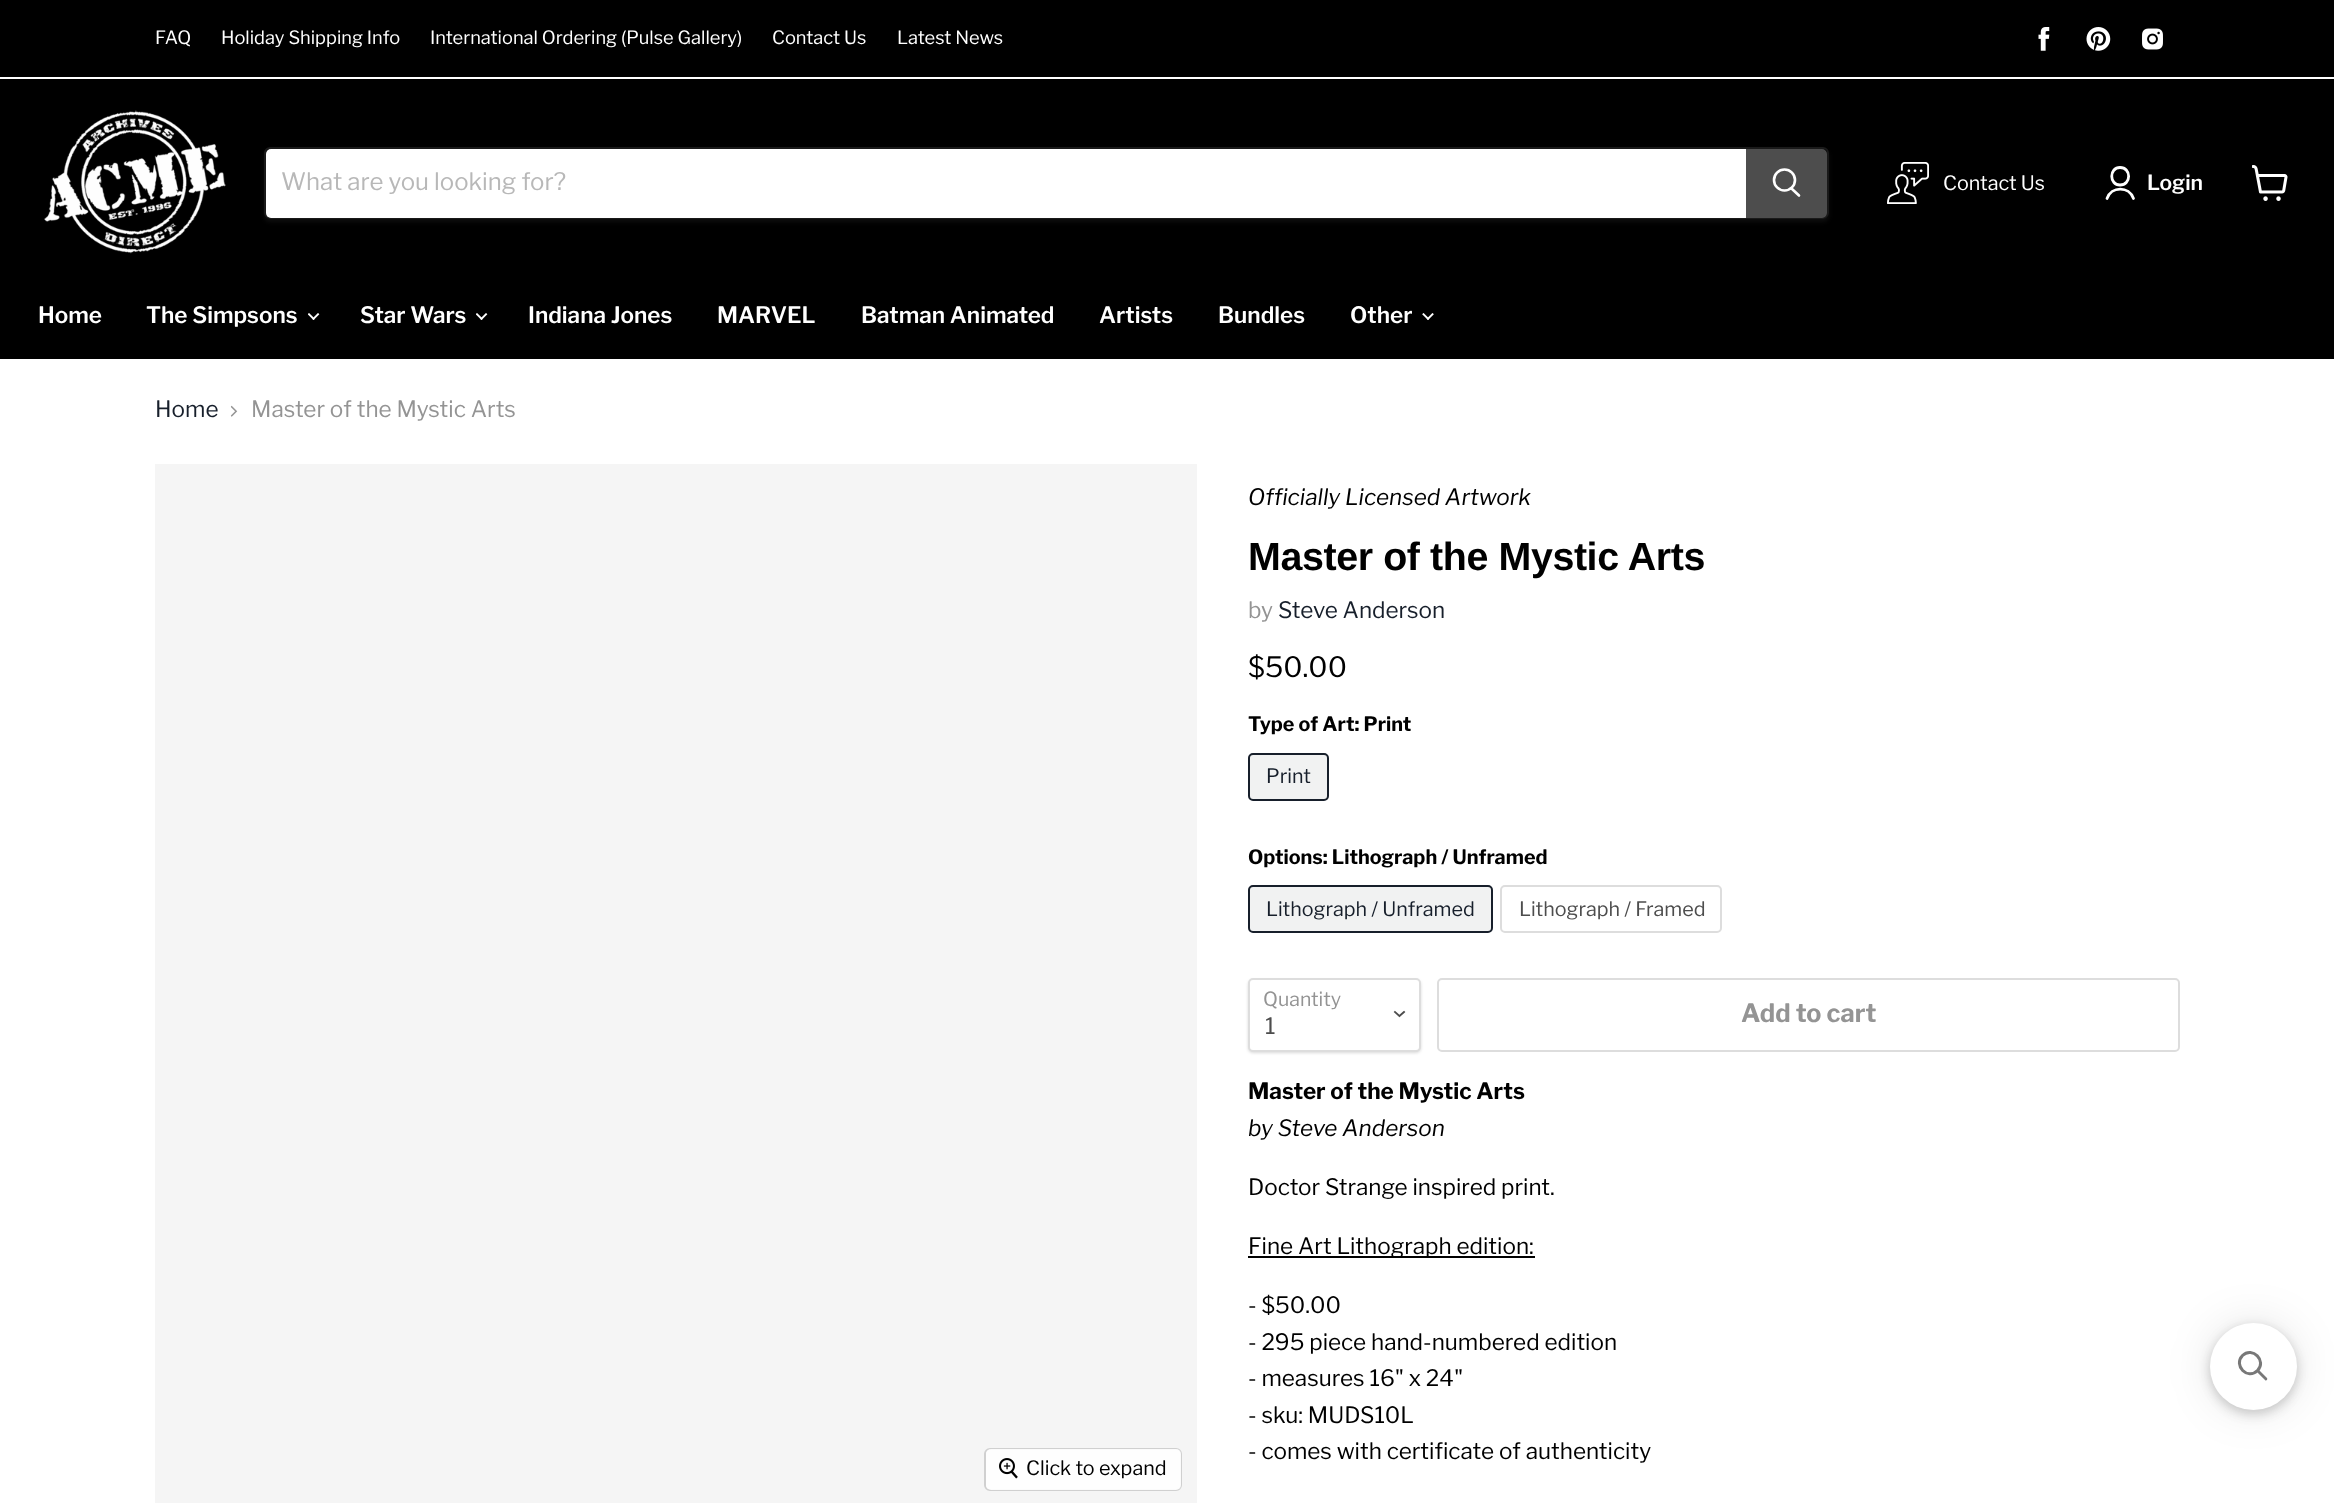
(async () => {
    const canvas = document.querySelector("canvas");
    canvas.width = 2334;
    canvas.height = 1503;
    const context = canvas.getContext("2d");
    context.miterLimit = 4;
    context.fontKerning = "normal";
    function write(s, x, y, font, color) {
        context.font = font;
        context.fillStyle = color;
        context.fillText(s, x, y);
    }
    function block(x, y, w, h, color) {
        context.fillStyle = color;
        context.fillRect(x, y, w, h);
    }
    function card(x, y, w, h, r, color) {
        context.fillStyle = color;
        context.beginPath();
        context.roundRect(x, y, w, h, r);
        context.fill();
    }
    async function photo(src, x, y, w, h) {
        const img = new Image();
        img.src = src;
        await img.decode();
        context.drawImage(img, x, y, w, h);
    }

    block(0, 0, 2334, 1503, "rgb(255, 255, 255)");
    block(0, 0, 2334, 77, "rgb(0, 0, 0)");
    write("FAQ", 155, 44, "18.25px Libre Franklin", "rgb(255, 255, 255)");
    write("Holiday Shipping Info", 221, 44, "18.25px Libre Franklin", "rgb(255, 255, 255)");
    write("International Ordering (Pulse Gallery)", 430, 44, "18.25px Libre Franklin", "rgb(255, 255, 255)");
    write("Contact Us", 772, 44, "18.25px Libre Franklin", "rgb(255, 255, 255)");
    write("Latest News", 897, 44, "18.25px Libre Franklin", "rgb(255, 255, 255)");
    await photo("media/1.png", 2038, 27, 12, 24);
    await photo("media/2.png", 2086, 27, 25, 24);
    await photo("media/3.png", 2142, 28, 21, 22);
    block(0, 79, 2334, 280, "rgb(0, 0, 0)");
    await photo("media/4.png", 44, 110, 182, 144);
    context.save();
    context.beginPath();
    context.moveTo(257, 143);
    context.lineTo(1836, 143);
    context.lineTo(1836, 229);
    context.lineTo(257, 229);
    context.closePath();
    context.moveTo(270, 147);
    context.lineTo(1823, 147);
    context.bezierCurveTo(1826.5, 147, 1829, 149.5, 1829, 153);
    context.lineTo(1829, 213);
    context.bezierCurveTo(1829, 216.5, 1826.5, 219, 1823, 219);
    context.lineTo(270, 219);
    context.bezierCurveTo(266.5, 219, 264, 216.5, 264, 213);
    context.lineTo(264, 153);
    context.bezierCurveTo(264, 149.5, 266.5, 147, 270, 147);
    context.closePath();
    context.clip("evenodd");
    context.fillStyle = "rgba(128, 128, 128, 0.11)";
    context.filter = "blur(2px)";
    context.beginPath();
    context.roundRect(264, 150, 1565, 72, 6);
    context.fill();
    context.filter = "none";
    context.restore();
    context.beginPath();
    context.roundRect(265, 148, 1563, 70, 5);
    context.strokeStyle = "rgba(128, 128, 128, 0.2)";
    context.lineWidth = 2;
    context.stroke();
    context.fillStyle = "rgb(255, 255, 255)";
    context.beginPath();
    context.roundRect(266, 149, 1480, 69, [5, 0, 0, 5]);
    context.fill();
    write("What are you looking for?", 281, 190, "24px Libre Franklin", "rgb(184, 184, 184)");
    context.fillStyle = "rgb(77, 77, 77)";
    context.beginPath();
    context.roundRect(1747, 150, 79, 67, [0, 4, 4, 0]);
    context.fill();
    context.strokeStyle = "rgb(77, 77, 77)";
    context.stroke();
    context.beginPath();
    context.moveTo(1799, 195.5);
    context.lineTo(1791.5, 188.5);
    context.strokeStyle = "rgb(255, 255, 255)";
    context.lineWidth = 2.6;
    context.lineCap = "round";
    context.stroke();
    context.beginPath();
    context.arc(1784.5, 180, 10.5, 0, Math.PI * 2);
    context.stroke();
    await photo("media/5.png", 1887, 162, 42, 42);
    write("Contact Us", 1943, 190, "19.75px Libre Franklin", "rgb(255, 255, 255)");
    context.beginPath();
    context.moveTo(2120, 185);
    context.bezierCurveTo(2131.5, 185, 2131.5, 167.5, 2120, 167.5);
    context.bezierCurveTo(2109, 167.5, 2109, 185, 2120, 185);
    context.closePath();
    context.moveTo(2133.5, 198.5);
    context.bezierCurveTo(2129, 186, 2111.5, 186, 2107, 198.5);
    context.lineWidth = 2.8;
    context.lineJoin = "round";
    context.stroke();
    write("Login", 2147, 190, "600 21px Libre Franklin", "rgb(255, 255, 255)");
    await photo("media/6.png", 2252, 165, 36, 36);
    write("Home", 38, 323, "600 22.5px Libre Franklin", "rgb(255, 255, 255)");
    write("The Simpsons", 146, 323, "600 22.5px Libre Franklin", "rgb(255, 255, 255)");
    await photo("media/7.png", 308, 313, 12, 7);
    write("Star Wars", 360, 323, "600 22.5px Libre Franklin", "rgb(255, 255, 255)");
    await photo("media/7.png", 476, 313, 12, 7);
    write("Indiana Jones", 528, 323, "600 22.5px Libre Franklin", "rgb(255, 255, 255)");
    write("MARVEL", 717, 323, "600 22.5px Libre Franklin", "rgb(255, 255, 255)");
    write("Batman Animated", 861, 323, "600 22.5px Libre Franklin", "rgb(255, 255, 255)");
    write("Artists", 1099, 323, "600 22.5px Libre Franklin", "rgb(255, 255, 255)");
    write("Bundles", 1218, 323, "600 22.5px Libre Franklin", "rgb(255, 255, 255)");
    write("Other", 1350, 323, "600 22.5px Libre Franklin", "rgb(255, 255, 255)");
    await photo("media/8.png", 1422, 313, 12, 7);
    write("Home", 155, 417, "22.5px Libre Franklin", "rgb(23, 31, 43)");
    await photo("media/9.png", 230, 405, 8, 12);
    write("Master of the Mystic Arts", 251, 417, "22.5px Libre Franklin", "rgb(148, 148, 148)");
    write("Officially Licensed Artwork", 1248, 505, "italic 22.5px Libre Franklin", "rgb(0, 0, 0)");
    context.letterSpacing = "-0.4px";
    write("Master of the Mystic Arts", 1248, 570, "bold 39.4px Arimo", "rgb(0, 0, 0)");
    context.letterSpacing = "0px";
    write("by", 1248, 618, "22.5px Libre Franklin", "rgb(148, 148, 148)");
    write("Steve Anderson", 1278, 618, "22.5px Libre Franklin", "rgb(23, 31, 43)");
    write("$50.00", 1248, 677, "28px Libre Franklin", "rgb(0, 0, 0)");
    write("Type of Art: Print", 1248, 731, "bold 19.75px Libre Franklin", "rgb(0, 0, 0)");
    context.fillStyle = "rgb(241, 242, 242)";
    context.beginPath();
    context.roundRect(1249, 754, 79, 46, 4);
    context.fill();
    context.strokeStyle = "rgb(23, 31, 43)";
    context.lineWidth = 2;
    context.lineJoin = "miter";
    context.stroke();
    write("Print", 1266, 783, "19.75px Libre Franklin", "rgb(23, 31, 43)");
    write("Options: Lithograph / Unframed", 1248, 864, "bold 19.75px Libre Franklin", "rgb(0, 0, 0)");
    context.fillStyle = "rgb(241, 242, 242)";
    context.beginPath();
    context.roundRect(1249, 886, 243, 46, 4);
    context.fill();
    context.stroke();
    write("Lithograph / Unframed", 1266, 916, "19.75px Libre Franklin", "rgb(23, 31, 43)");
    context.beginPath();
    context.roundRect(1501, 886, 220, 46, 4);
    context.strokeStyle = "rgb(221, 221, 221)";
    context.stroke();
    write("Lithograph / Framed", 1519, 916, "19.75px Libre Franklin", "rgb(77, 77, 77)");
    context.fillStyle = "rgba(0, 0, 0, 0.15)";
    context.filter = "blur(1.5px)";
    context.beginPath();
    context.roundRect(1248, 980, 173, 73, 5);
    context.fill();
    context.filter = "none";
    context.fillStyle = "rgb(255, 255, 255)";
    context.beginPath();
    context.roundRect(1249, 979, 171, 72, 4);
    context.fill();
    context.stroke();
    write("Quantity", 1263, 1006, "19.5px Libre Franklin", "rgb(148, 148, 148)");
    context.beginPath();
    context.moveTo(1399.5, 1016);
    context.lineTo(1404, 1012);
    context.moveTo(1399.5, 1016);
    context.lineTo(1395, 1012);
    context.strokeStyle = "rgb(77, 77, 77)";
    context.lineWidth = 1.9;
    context.lineCap = "square";
    context.stroke();
    write("1", 1265, 1034, "22.5px Libre Franklin", "rgb(77, 77, 77)");
    context.beginPath();
    context.roundRect(1438, 979, 741, 72, 4);
    context.strokeStyle = "rgb(221, 221, 221)";
    context.lineWidth = 2;
    context.stroke();
    write("Add to cart", 1741, 1022, "bold 25.25px Libre Franklin", "rgb(148, 148, 148)");
    write("Master of the Mystic Arts", 1248, 1099, "bold 22.5px Libre Franklin", "rgb(0, 0, 0)");
    write("by Steve Anderson", 1248, 1136, "italic 22.5px Libre Franklin", "rgb(0, 0, 0)");
    write("Doctor Strange inspired print.", 1248, 1195, "22.5px Libre Franklin", "rgb(0, 0, 0)");
    block(1248, 1256, 287, 2, "rgb(0, 0, 0)");
    write("Fine Art Lithograph edition:", 1248, 1254, "22.5px Libre Franklin", "rgb(0, 0, 0)");
    write("- $50.00", 1248, 1313, "22.5px Libre Franklin", "rgb(0, 0, 0)");
    write("- 295 piece hand-numbered edition", 1248, 1350, "22.5px Libre Franklin", "rgb(0, 0, 0)");
    write("- measures 16\" x 24\"", 1248, 1386, "22.5px Libre Franklin", "rgb(0, 0, 0)");
    write("- sku: MUDS10L", 1248, 1423, "22.5px Libre Franklin", "rgb(0, 0, 0)");
    write("- comes with certificate of authenticity", 1248, 1459, "22.5px Libre Franklin", "rgb(0, 0, 0)");
    block(155, 464, 1042, 1039, "rgb(245, 245, 245)");
    context.beginPath();
    context.roundRect(985, 1449, 196, 41, 5);
    context.strokeStyle = "rgb(208, 208, 208)";
    context.stroke();
    card(986, 1449, 195, 41, 5, "rgba(255, 255, 255, 0.9)");
    await photo("media/10.png", 999, 1458, 19, 21);
    write("Click to expand", 1026, 1475, "19.75px Libre Franklin", "rgb(0, 0, 0)");
    context.fillStyle = "rgba(0, 0, 0, 0.05)";
    context.filter = "blur(6px)";
    context.beginPath();
    context.roundRect(2210, 1329, 87, 87, 43.5);
    context.fill();
    context.filter = "none";
    context.fillStyle = "rgba(0, 0, 0, 0.15)";
    context.filter = "blur(6px)";
    context.beginPath();
    context.roundRect(2210, 1326, 87, 87, 43.5);
    context.fill();
    context.filter = "none";
    context.fillStyle = "rgba(0, 0, 0, 0.1)";
    context.filter = "blur(22.5px)";
    context.beginPath();
    context.roundRect(2210, 1323, 87, 87, 43.5);
    context.fill();
    context.filter = "none";
    context.fillStyle = "rgb(255, 255, 255)";
    context.beginPath();
    context.arc(2253.5, 1366.5, 43.5, 0, Math.PI * 2);
    context.fill();
    context.beginPath();
    context.moveTo(2242.5, 1355.5);
    context.bezierCurveTo(2252.5, 1346, 2267, 1361, 2257.5, 1370.5);
    context.bezierCurveTo(2247.5, 1380.5, 2233, 1365.5, 2242.5, 1355.5);
    context.closePath();
    context.strokeStyle = "rgb(120, 120, 120)";
    context.lineWidth = 3;
    context.lineCap = "butt";
    context.stroke();
    context.fillStyle = "rgb(120, 120, 120)";
    context.beginPath();
    context.moveTo(2256.5, 1371.5);
    context.lineTo(2258.5, 1369.5);
    context.lineTo(2267, 1378);
    context.bezierCurveTo(2268, 1379.5, 2266, 1381.5, 2265, 1380);
    context.closePath();
    context.fill();
})();
